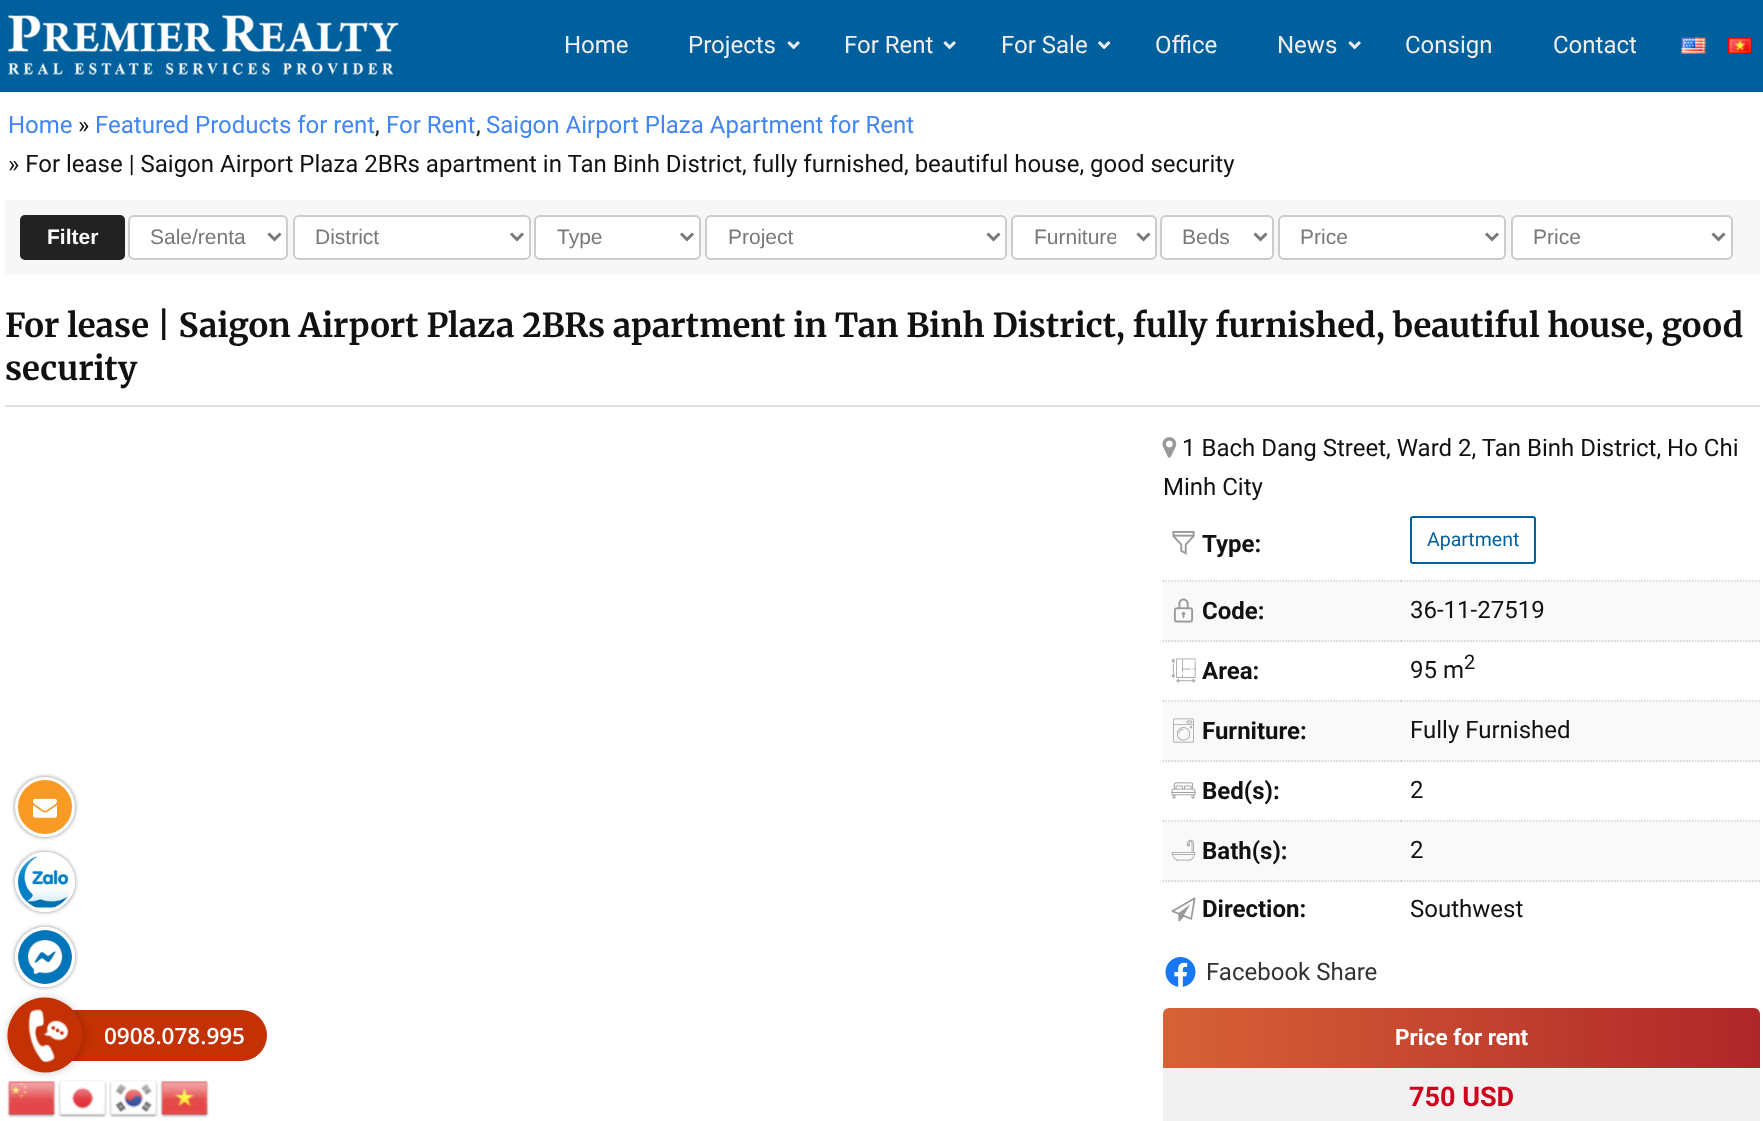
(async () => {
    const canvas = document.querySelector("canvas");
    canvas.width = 1763;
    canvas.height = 1121;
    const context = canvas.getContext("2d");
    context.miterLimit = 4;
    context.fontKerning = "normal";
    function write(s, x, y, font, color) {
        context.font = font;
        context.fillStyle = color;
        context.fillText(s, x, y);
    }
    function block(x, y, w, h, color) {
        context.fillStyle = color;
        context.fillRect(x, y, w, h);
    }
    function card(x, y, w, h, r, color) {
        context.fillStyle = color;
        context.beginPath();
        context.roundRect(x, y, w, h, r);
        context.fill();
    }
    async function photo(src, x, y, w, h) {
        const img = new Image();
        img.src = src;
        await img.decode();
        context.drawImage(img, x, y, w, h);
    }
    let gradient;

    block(0, 0, 1763, 1121, "rgb(255, 255, 255)");
    block(0, 0, 1763, 92, "rgb(0, 96, 157)");
    await photo("media/1.png", 8, 15, 391, 60);
    write("Home", 564, 53, "24px Roboto", "rgb(238, 238, 238)");
    write("Projects", 688, 53, "24px Roboto", "rgb(238, 238, 238)");
    await photo("media/2.png", 787, 41, 13, 9);
    write("For Rent", 844, 53, "24px Roboto", "rgb(238, 238, 238)");
    await photo("media/2.png", 943, 41, 13, 9);
    write("For Sale", 1001, 53, "24px Roboto", "rgb(238, 238, 238)");
    await photo("media/3.png", 1098, 41, 13, 9);
    write("Office", 1155, 53, "24px Roboto", "rgb(238, 238, 238)");
    write("News", 1277, 53, "24px Roboto", "rgb(238, 238, 238)");
    await photo("media/2.png", 1348, 41, 13, 9);
    write("Consign", 1405, 53, "24px Roboto", "rgb(238, 238, 238)");
    write("Contact", 1553, 53, "24px Roboto", "rgb(238, 238, 238)");
    await photo("media/4.png", 1681, 37, 25, 17);
    await photo("media/5.png", 1728, 37, 24, 17);
    write("Home", 8, 133, "24px Roboto", "rgb(66, 133, 244)");
    write("»", 78, 133, "24px Roboto", "rgb(17, 17, 17)");
    write("Featured Products for rent", 95, 133, "24px Roboto", "rgb(66, 133, 244)");
    write(",", 375, 133, "24px Roboto", "rgb(17, 17, 17)");
    write("For Rent", 386, 133, "24px Roboto", "rgb(66, 133, 244)");
    write(",", 476, 133, "24px Roboto", "rgb(17, 17, 17)");
    write("Saigon Airport Plaza Apartment for Rent", 486, 133, "24px Roboto", "rgb(66, 133, 244)");
    write("» For lease | Saigon Airport Plaza 2BRs apartment in Tan Binh District, fully furnished, beautiful house, good security", 8, 172, "24px Roboto", "rgb(17, 17, 17)");
    block(5, 200, 1755, 75, "rgb(247, 247, 247)");
    card(20, 215, 105, 45, 5, "rgb(34, 34, 34)");
    write("Filter", 47, 244, "bold 21px Liberation Sans", "rgb(255, 255, 255)");
    context.beginPath();
    context.roundRect(129, 216, 158, 43, 5);
    context.fill();
    context.strokeStyle = "rgb(204, 204, 204)";
    context.lineWidth = 2;
    context.stroke();
    context.beginPath();
    context.moveTo(268.5, 233.5);
    context.lineTo(274.5, 239.5);
    context.lineTo(280.5, 233.5);
    context.strokeStyle = "rgb(120, 120, 120)";
    context.lineWidth = 3;
    context.stroke();
    write("Sale/renta", 150, 244, "21px Liberation Sans", "rgb(120, 120, 120)");
    context.fillStyle = "rgb(255, 255, 255)";
    context.beginPath();
    context.roundRect(294, 216, 236, 43, 5);
    context.fill();
    context.strokeStyle = "rgb(204, 204, 204)";
    context.lineWidth = 2;
    context.stroke();
    context.beginPath();
    context.moveTo(511, 233.5);
    context.lineTo(517, 239.5);
    context.lineTo(523, 233.5);
    context.strokeStyle = "rgb(120, 120, 120)";
    context.lineWidth = 3;
    context.stroke();
    write("District", 315, 244, "21px Liberation Sans", "rgb(120, 120, 120)");
    context.fillStyle = "rgb(255, 255, 255)";
    context.beginPath();
    context.roundRect(535, 216, 165, 43, 5);
    context.fill();
    context.strokeStyle = "rgb(204, 204, 204)";
    context.lineWidth = 2;
    context.stroke();
    context.beginPath();
    context.moveTo(681, 233.5);
    context.lineTo(687, 239.5);
    context.lineTo(693, 233.5);
    context.strokeStyle = "rgb(120, 120, 120)";
    context.lineWidth = 3;
    context.stroke();
    write("Type", 557, 244, "21px Liberation Sans", "rgb(120, 120, 120)");
    context.fillStyle = "rgb(255, 255, 255)";
    context.beginPath();
    context.roundRect(706, 216, 300, 43, 5);
    context.fill();
    context.strokeStyle = "rgb(204, 204, 204)";
    context.lineWidth = 2;
    context.stroke();
    context.beginPath();
    context.moveTo(987.5, 233.5);
    context.lineTo(993.5, 239.5);
    context.lineTo(999.5, 233.5);
    context.strokeStyle = "rgb(120, 120, 120)";
    context.lineWidth = 3;
    context.stroke();
    write("Project", 728, 244, "21px Liberation Sans", "rgb(120, 120, 120)");
    context.fillStyle = "rgb(255, 255, 255)";
    context.beginPath();
    context.roundRect(1012, 216, 144, 43, 5);
    context.fill();
    context.strokeStyle = "rgb(204, 204, 204)";
    context.lineWidth = 2;
    context.stroke();
    context.beginPath();
    context.moveTo(1137.5, 233.5);
    context.lineTo(1143.5, 239.5);
    context.lineTo(1149.5, 233.5);
    context.strokeStyle = "rgb(120, 120, 120)";
    context.lineWidth = 3;
    context.stroke();
    context.save();
    context.beginPath();
    context.rect(1034, 224, 82, 27);
    context.clip();
    write("Furniture", 1034, 244, "21px Liberation Sans", "rgb(120, 120, 120)");
    context.restore();
    context.beginPath();
    context.roundRect(1161, 216, 112, 43, 5);
    context.fill();
    context.strokeStyle = "rgb(204, 204, 204)";
    context.lineWidth = 2;
    context.stroke();
    context.beginPath();
    context.moveTo(1254.5, 233.5);
    context.lineTo(1260.5, 239.5);
    context.lineTo(1266.5, 233.5);
    context.strokeStyle = "rgb(120, 120, 120)";
    context.lineWidth = 3;
    context.stroke();
    write("Beds", 1182, 244, "21px Liberation Sans", "rgb(120, 120, 120)");
    context.fillStyle = "rgb(255, 255, 255)";
    context.beginPath();
    context.roundRect(1279, 216, 226, 43, 5);
    context.fill();
    context.strokeStyle = "rgb(204, 204, 204)";
    context.lineWidth = 2;
    context.stroke();
    context.beginPath();
    context.moveTo(1486, 233.5);
    context.lineTo(1492, 239.5);
    context.lineTo(1498, 233.5);
    context.strokeStyle = "rgb(120, 120, 120)";
    context.lineWidth = 3;
    context.stroke();
    write("Price", 1300, 244, "21px Liberation Sans", "rgb(120, 120, 120)");
    context.fillStyle = "rgb(255, 255, 255)";
    context.beginPath();
    context.roundRect(1512, 216, 220, 43, 5);
    context.fill();
    context.strokeStyle = "rgb(204, 204, 204)";
    context.lineWidth = 2;
    context.stroke();
    context.beginPath();
    context.moveTo(1712.5, 233.5);
    context.lineTo(1718.5, 239.5);
    context.lineTo(1724.5, 233.5);
    context.strokeStyle = "rgb(120, 120, 120)";
    context.lineWidth = 3;
    context.stroke();
    write("Price", 1533, 244, "21px Liberation Sans", "rgb(120, 120, 120)");
    block(5, 405, 1755, 2, "rgb(224, 224, 224)");
    write("For lease | Saigon Airport Plaza 2BRs apartment in Tan Binh District, fully furnished, beautiful house, good", 5, 337, "bold 33px Merriweather", "rgb(17, 17, 17)");
    write("security", 5, 380, "bold 33px Merriweather", "rgb(17, 17, 17)");
    await photo("media/6.png", 1162, 437, 15, 21);
    write("1 Bach Dang Street, Ward 2, Tan Binh District, Ho Chi", 1182, 456, "24px Roboto", "rgb(17, 17, 17)");
    write("Minh City", 1163, 495, "24px Roboto", "rgb(17, 17, 17)");
    context.beginPath();
    context.moveTo(1162.5, 581);
    context.lineTo(1401, 581);
    context.strokeStyle = "rgb(204, 204, 204)";
    context.lineWidth = 1.5;
    context.setLineDash([1.5, 1.5]);
    context.stroke();
    await photo("media/7.png", 1172, 531, 23, 24);
    write("Type:", 1202, 552, "bold 24px Roboto", "rgb(17, 17, 17)");
    context.beginPath();
    context.moveTo(1401, 581);
    context.lineTo(1759.5, 581);
    context.stroke();
    context.beginPath();
    context.roundRect(1411, 517, 124, 46, 2);
    context.strokeStyle = "rgb(0, 96, 157)";
    context.lineWidth = 2;
    context.setLineDash([]);
    context.stroke();
    write("Apartment", 1427, 546, "19.5px Roboto", "rgb(0, 96, 157)");
    block(1163, 582, 597, 60, "rgb(249, 249, 249)");
    context.beginPath();
    context.moveTo(1162.5, 641);
    context.lineTo(1401, 641);
    context.strokeStyle = "rgb(204, 204, 204)";
    context.lineWidth = 1.5;
    context.setLineDash([1.5, 1.5]);
    context.stroke();
    await photo("media/8.png", 1173, 598, 21, 25);
    write("Code:", 1202, 619, "bold 24px Roboto", "rgb(17, 17, 17)");
    context.beginPath();
    context.moveTo(1401, 641);
    context.lineTo(1759.5, 641);
    context.stroke();
    write("36-11-27519", 1410, 618, "24px Roboto", "rgb(17, 17, 17)");
    context.beginPath();
    context.moveTo(1162.5, 701);
    context.lineTo(1401, 701);
    context.stroke();
    await photo("media/9.png", 1171, 658, 25, 25);
    write("Area:", 1202, 679, "bold 24px Roboto", "rgb(17, 17, 17)");
    context.beginPath();
    context.moveTo(1401, 701);
    context.lineTo(1759.5, 701);
    context.stroke();
    write("95 m", 1410, 678, "24px Roboto", "rgb(17, 17, 17)");
    write("2", 1464, 669, "20px Roboto", "rgb(17, 17, 17)");
    block(1163, 702, 597, 60, "rgb(249, 249, 249)");
    context.beginPath();
    context.moveTo(1162.5, 761);
    context.lineTo(1401, 761);
    context.stroke();
    await photo("media/10.png", 1173, 718, 21, 25);
    write("Furniture:", 1202, 739, "bold 24px Roboto", "rgb(17, 17, 17)");
    context.beginPath();
    context.moveTo(1401, 761);
    context.lineTo(1759.5, 761);
    context.stroke();
    write("Fully Furnished", 1410, 738, "24px Roboto", "rgb(17, 17, 17)");
    context.beginPath();
    context.moveTo(1162.5, 821);
    context.lineTo(1401, 821);
    context.stroke();
    await photo("media/11.png", 1171, 782, 25, 17);
    write("Bed(s):", 1202, 799, "bold 24px Roboto", "rgb(17, 17, 17)");
    context.beginPath();
    context.moveTo(1401, 821);
    context.lineTo(1759.5, 821);
    context.stroke();
    write("2", 1410, 798, "24px Roboto", "rgb(17, 17, 17)");
    block(1163, 822, 597, 60, "rgb(249, 249, 249)");
    context.beginPath();
    context.moveTo(1162.5, 881);
    context.lineTo(1401, 881);
    context.stroke();
    await photo("media/12.png", 1171, 839, 25, 23);
    write("Bath(s):", 1202, 859, "bold 24px Roboto", "rgb(17, 17, 17)");
    context.beginPath();
    context.moveTo(1401, 881);
    context.lineTo(1759.5, 881);
    context.stroke();
    write("2", 1410, 858, "24px Roboto", "rgb(17, 17, 17)");
    await photo("media/13.png", 1171, 897, 25, 25);
    write("Direction:", 1202, 917, "bold 24px Roboto", "rgb(17, 17, 17)");
    write("Southwest", 1410, 917, "24px Roboto", "rgb(17, 17, 17)");
    await photo("media/14.png", 1165, 957, 31, 30);
    write("Facebook Share", 1206, 980, "24px Roboto", "rgb(51, 51, 51)");
    gradient = context.createLinearGradient(1163, 1038, 1760, 1038);
    gradient.addColorStop(0, "rgb(215, 98, 54)");
    gradient.addColorStop(1, "rgb(176, 38, 41)");
    context.fillStyle = gradient;
    context.beginPath();
    context.roundRect(1163, 1008, 597, 60, [6, 6, 0, 0]);
    context.fill();
    write("Price for rent", 1395, 1045, "bold 22.5px Roboto", "rgb(255, 255, 255)");
    block(1163, 1068, 597, 53, "rgb(241, 241, 241)");
    write("750 USD", 1409, 1106, "bold 27px Roboto", "rgb(208, 2, 28)");
    context.fillStyle = "rgb(136, 136, 136)";
    context.filter = "blur(2px)";
    context.beginPath();
    context.roundRect(15, 777, 60, 60, 30);
    context.fill();
    context.filter = "none";
    context.fillStyle = "rgb(249, 154, 36)";
    context.beginPath();
    context.arc(45, 807, 28.5, 0, Math.PI * 2);
    context.fill();
    context.strokeStyle = "rgb(255, 255, 255)";
    context.lineWidth = 3;
    context.setLineDash([]);
    context.stroke();
    await photo("media/15.png", 33, 798, 24, 20);
    context.fillStyle = "rgb(136, 136, 136)";
    context.filter = "blur(2px)";
    context.beginPath();
    context.roundRect(15, 852, 60, 60, 30);
    context.fill();
    context.filter = "none";
    context.fillStyle = "rgb(255, 255, 255)";
    context.beginPath();
    context.arc(45, 882, 30, 0, Math.PI * 2);
    context.fill();
    await photo("media/16.png", 18, 856, 54, 52);
    context.beginPath();
    context.arc(45, 882, 28.5, 0, Math.PI * 2);
    context.stroke();
    context.fillStyle = "rgb(136, 136, 136)";
    context.filter = "blur(2px)";
    context.beginPath();
    context.roundRect(15, 927, 60, 60, 30);
    context.fill();
    context.filter = "none";
    context.fillStyle = "rgb(255, 255, 255)";
    context.beginPath();
    context.arc(45, 957, 30, 0, Math.PI * 2);
    context.fill();
    await photo("media/17.png", 18, 930, 54, 54);
    context.beginPath();
    context.arc(45, 957, 28.5, 0, Math.PI * 2);
    context.stroke();
    card(44, 1010, 223, 51, 25.5, "rgb(195, 49, 4)");
    context.fillStyle = "rgba(0, 0, 0, 0.2)";
    context.filter = "blur(4.5px)";
    context.beginPath();
    context.roundRect(8, 998, 75, 75, 37.5);
    context.fill();
    context.filter = "none";
    context.fillStyle = "rgb(195, 49, 4)";
    context.beginPath();
    context.moveTo(64, 1003);
    context.bezierCurveTo(82, 1013, 88, 1036, 77, 1054);
    context.bezierCurveTo(67, 1072, 44, 1078, 26, 1067);
    context.bezierCurveTo(8, 1057, 2, 1034, 13, 1016);
    context.bezierCurveTo(23, 998, 46, 992, 64, 1003);
    context.closePath();
    context.fill();
    await photo("media/18.png", 28, 1009, 41, 54);
    write("0908.078.995", 104, 1044, "600 22.5px Open Sans", "rgb(255, 255, 255)");
    await photo("media/19.png", 7, 1080, 49, 38);
    await photo("media/20.png", 58, 1080, 49, 38);
    await photo("media/21.png", 109, 1080, 49, 38);
    await photo("media/22.png", 160, 1080, 49, 38);
})();
